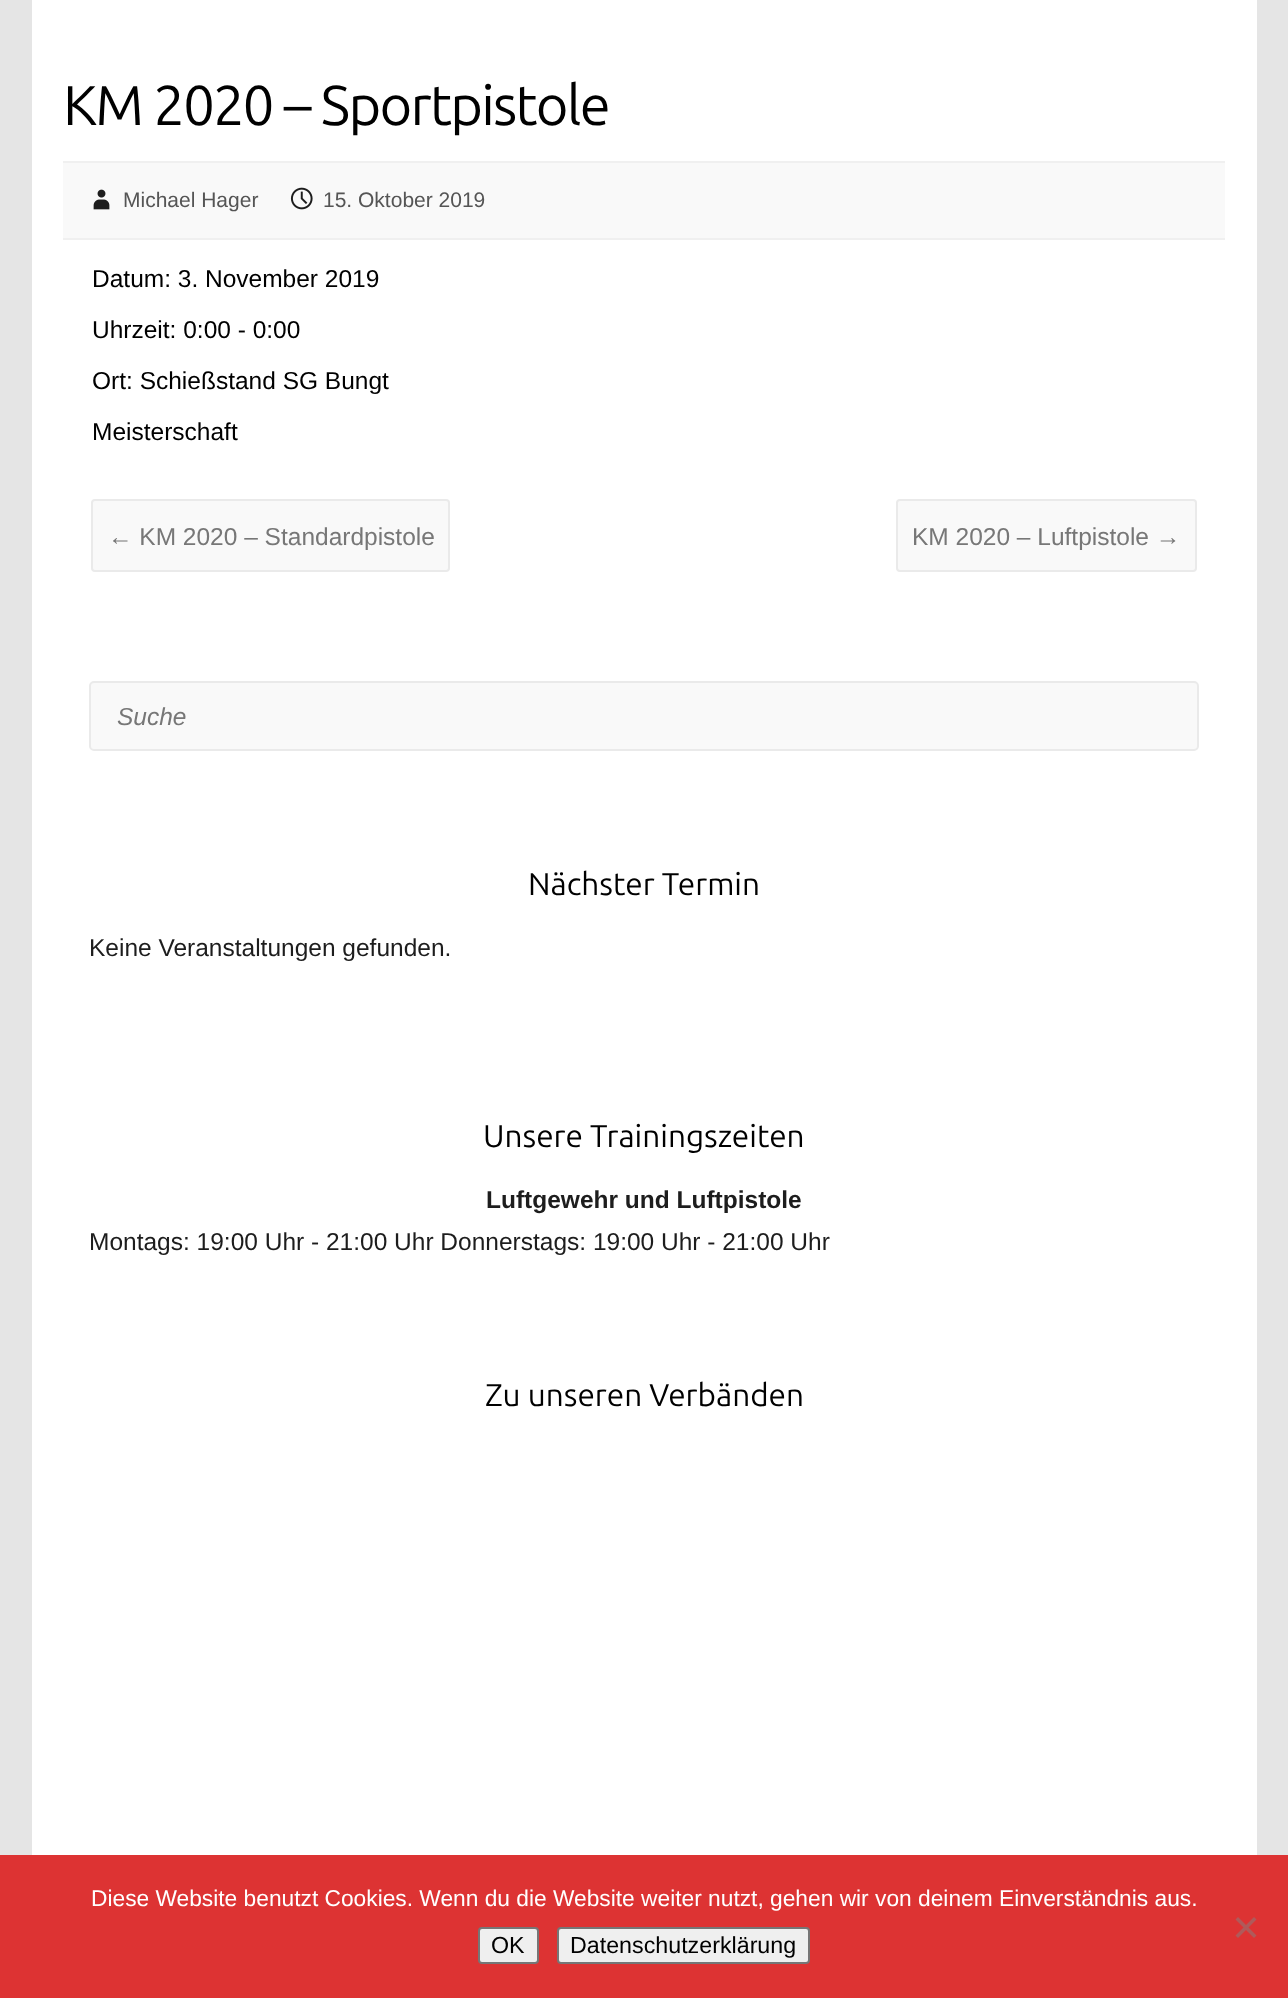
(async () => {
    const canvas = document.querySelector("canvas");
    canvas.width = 1288;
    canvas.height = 1998;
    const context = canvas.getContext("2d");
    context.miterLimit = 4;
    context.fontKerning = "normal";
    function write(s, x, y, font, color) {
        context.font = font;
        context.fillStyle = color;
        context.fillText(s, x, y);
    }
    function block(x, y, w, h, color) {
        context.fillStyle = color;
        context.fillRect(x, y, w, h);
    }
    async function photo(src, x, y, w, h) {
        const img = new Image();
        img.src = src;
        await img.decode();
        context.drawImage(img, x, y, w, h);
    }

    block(0, 0, 1288, 1998, "rgb(229, 229, 229)");
    block(32, 0, 1225, 1855, "rgb(255, 255, 255)");
    context.letterSpacing = "-1.75px";
    write("KM 2020 – Sportpistole", 63, 125, "56px Ubuntu", "rgb(0, 0, 0)");
    block(63, 163, 1162, 75, "rgb(249, 249, 249)");
    block(63, 161, 1162, 2, "rgb(240, 240, 240)");
    block(63, 238, 1162, 2, "rgb(240, 240, 240)");
    await photo("media/1.png", 93, 189, 17, 21);
    context.letterSpacing = "0px";
    write("Michael Hager", 123, 207, "21px Liberation Sans", "rgb(85, 85, 85)");
    await photo("media/2.png", 290, 187, 23, 23);
    write("15. Oktober 2019", 323, 207, "21px Liberation Sans", "rgb(85, 85, 85)");
    write("Datum: 3. November 2019", 92, 287, "24.5px Liberation Sans", "rgb(0, 0, 0)");
    write("Uhrzeit: 0:00 - 0:00", 92, 338, "24.5px Liberation Sans", "rgb(0, 0, 0)");
    write("Ort: Schießstand SG Bungt", 92, 389, "24.5px Liberation Sans", "rgb(0, 0, 0)");
    write("Meisterschaft", 92, 440, "24.5px Liberation Sans", "rgb(0, 0, 0)");
    context.fillStyle = "rgb(249, 249, 249)";
    context.beginPath();
    context.roundRect(92, 500, 357, 71, 3);
    context.fill();
    context.strokeStyle = "rgb(234, 234, 234)";
    context.lineWidth = 2;
    context.stroke();
    write("← KM 2020 – Standardpistole", 108, 545, "24.5px Liberation Sans", "rgb(119, 119, 119)");
    context.fillStyle = "rgb(249, 249, 249)";
    context.beginPath();
    context.roundRect(897, 500, 299, 71, 3);
    context.fill();
    context.stroke();
    write("KM 2020 – Luftpistole →", 912, 545, "24.5px Liberation Sans", "rgb(119, 119, 119)");
    context.fillStyle = "rgb(249, 249, 249)";
    context.beginPath();
    context.roundRect(90, 682, 1108, 68, 4);
    context.fill();
    context.stroke();
    write("Suche", 117, 725, "italic 24.5px Liberation Sans", "rgb(119, 119, 119)");
    write("Nächster Termin", 528, 895, "31.5px Ubuntu", "rgb(0, 0, 0)");
    write("Keine Veranstaltungen gefunden.", 89, 956, "24.5px Liberation Sans", "rgb(29, 29, 29)");
    write("Unsere Trainingszeiten", 483, 1147, "31.5px Ubuntu", "rgb(0, 0, 0)");
    write("Luftgewehr und Luftpistole", 486, 1208, "bold 24.5px Liberation Sans", "rgb(29, 29, 29)");
    write("Montags: 19:00 Uhr - 21:00 Uhr Donnerstags: 19:00 Uhr - 21:00 Uhr", 89, 1250, "24.5px Liberation Sans", "rgb(29, 29, 29)");
    write("Zu unseren Verbänden", 485, 1406, "31.5px Ubuntu", "rgb(0, 0, 0)");
    block(0, 1855, 1288, 143, "rgb(221, 51, 51)");
    write("Diese Website benutzt Cookies. Wenn du die Website weiter nutzt, gehen wir von deinem Einverständnis aus.", 91, 1906, "22.75px Liberation Sans", "rgb(255, 255, 255)");
    context.fillStyle = "rgb(175, 90, 90)";
    context.beginPath();
    context.moveTo(1254, 1917);
    context.lineTo(1256.5, 1919.5);
    context.lineTo(1238, 1938);
    context.lineTo(1235.5, 1935.5);
    context.closePath();
    context.fill();
    context.beginPath();
    context.moveTo(1235.5, 1919.5);
    context.lineTo(1238, 1917);
    context.lineTo(1256.5, 1935.5);
    context.lineTo(1254, 1938);
    context.closePath();
    context.fill();
    context.fillStyle = "rgb(239, 239, 239)";
    context.beginPath();
    context.roundRect(479, 1928, 59, 35, 3);
    context.fill();
    context.strokeStyle = "rgb(118, 118, 118)";
    context.stroke();
    write("OK", 491, 1953, "23.25px Liberation Sans", "rgb(0, 0, 0)");
    context.fillStyle = "rgb(239, 239, 239)";
    context.beginPath();
    context.roundRect(558, 1928, 251, 35, 3);
    context.fill();
    context.stroke();
    write("Datenschutzerklärung", 570, 1953, "23.25px Liberation Sans", "rgb(0, 0, 0)");
})();
